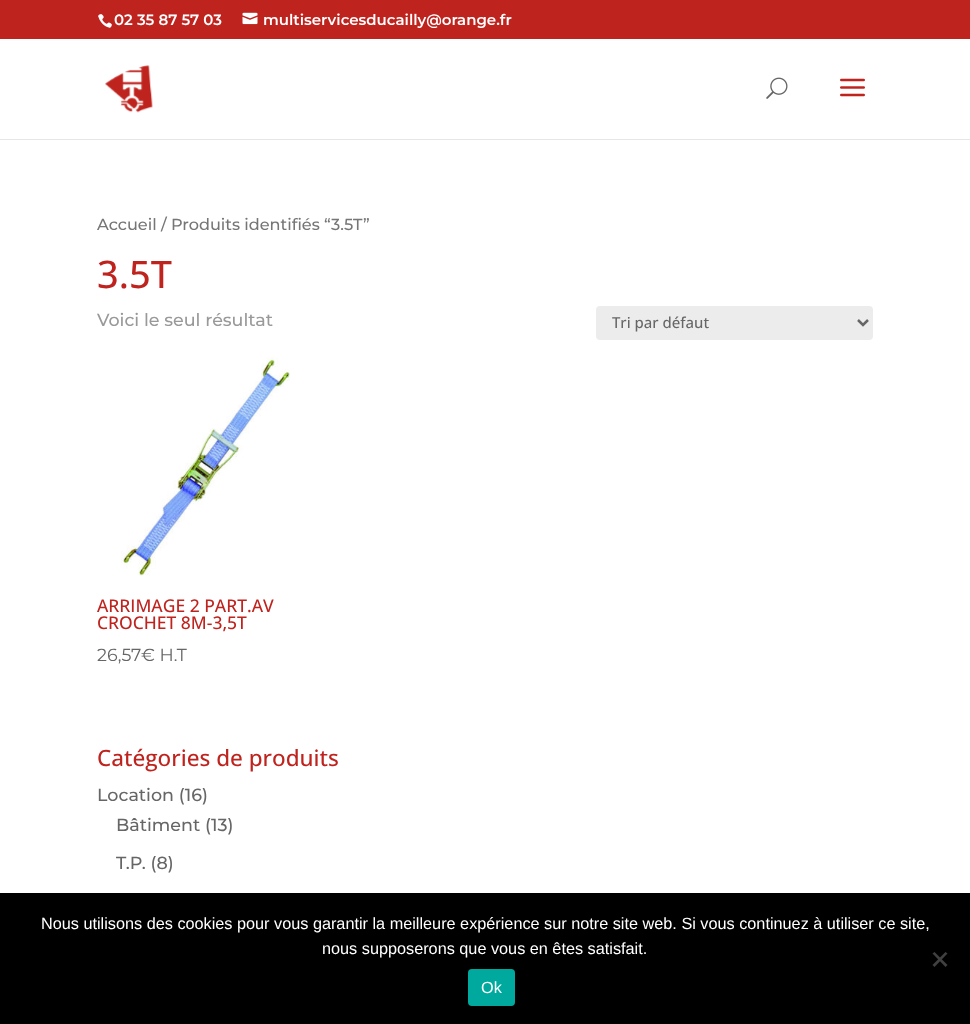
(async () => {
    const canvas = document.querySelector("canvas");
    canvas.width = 970;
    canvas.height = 1024;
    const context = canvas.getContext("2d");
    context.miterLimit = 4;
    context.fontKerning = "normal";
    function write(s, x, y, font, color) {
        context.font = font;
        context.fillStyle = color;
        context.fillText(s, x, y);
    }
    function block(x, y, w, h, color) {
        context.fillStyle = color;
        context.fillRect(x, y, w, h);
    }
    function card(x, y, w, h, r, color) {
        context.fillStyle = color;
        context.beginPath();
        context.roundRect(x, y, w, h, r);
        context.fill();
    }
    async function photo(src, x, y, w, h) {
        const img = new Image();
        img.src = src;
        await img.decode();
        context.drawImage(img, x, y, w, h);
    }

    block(0, 0, 970, 1024, "rgb(255, 255, 255)");
    block(0, 0, 970, 39, "rgb(191, 35, 30)");
    await photo("media/1.png", 98, 14, 14, 14);
    write("02 35 87 57 03", 114, 25, "100 15px 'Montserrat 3'", "rgb(255, 255, 255)");
    await photo("media/2.png", 242, 12, 16, 13);
    write("multiservicesducailly@orange.fr", 263, 25, "100 15px 'Montserrat 3'", "rgb(255, 255, 255)");
    block(0, 139, 970, 1, "rgb(230, 230, 230)");
    await photo("media/3.png", 105, 65, 48, 48);
    await photo("media/4.png", 766, 77, 22, 22);
    await photo("media/5.png", 840, 78, 25, 19);
    write("Accueil / Produits identifiés “3.5T”", 97, 230, "100 16.1px Montserrat", "rgb(118, 118, 118)");
    write("3.5T", 97, 288, "500 38px Open Sans", "rgb(191, 35, 30)");
    write("Voici le seul résultat", 97, 326, "100 17.5px Montserrat", "rgb(153, 153, 153)");
    card(596, 306, 277, 34, 4, "rgb(236, 236, 236)");
    context.beginPath();
    context.moveTo(858, 320);
    context.lineTo(863, 325);
    context.lineTo(868, 320);
    context.strokeStyle = "rgb(102, 102, 102)";
    context.lineWidth = 2.5;
    context.stroke();
    write("Tri par défaut", 612, 328, "500 15px Open Sans", "rgb(102, 102, 102)");
    await photo("media/6.png", 121, 357, 169, 219);
    write("ARRIMAGE 2 PART.AV", 97, 612, "500 17.5px Open Sans", "rgb(191, 35, 30)");
    write("CROCHET 8M-3,5T", 97, 629, "500 17.5px Open Sans", "rgb(191, 35, 30)");
    write("26,57", 97, 661, "100 17.5px 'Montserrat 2'", "rgb(102, 102, 102)");
    write("€ H.T", 141, 661, "100 17.5px 'Montserrat 2'", "rgb(102, 102, 102)");
    write("Catégories de produits", 97, 766, "500 22.5px Open Sans", "rgb(191, 35, 30)");
    write("Location (16)", 97, 801, "100 17.5px Montserrat", "rgb(102, 102, 102)");
    write("Bâtiment (13)", 116, 831, "100 17.5px Montserrat", "rgb(102, 102, 102)");
    write("T.P. (8)", 116, 869, "100 17.5px Montserrat", "rgb(102, 102, 102)");
    block(0, 893, 970, 131, "rgb(0, 0, 0)");
    write("Nous utilisons des cookies pour vous garantir la meilleure expérience sur notre site web. Si vous continuez à utiliser ce site,", 41, 929, "16.25px Liberation Sans", "rgb(255, 255, 255)");
    write("nous supposerons que vous en êtes satisfait.", 322, 954, "16.25px Liberation Sans", "rgb(255, 255, 255)");
    context.fillStyle = "rgb(64, 64, 64)";
    context.beginPath();
    context.moveTo(945.5, 952);
    context.lineTo(947.5, 953.5);
    context.lineTo(934.5, 967);
    context.lineTo(932.5, 965);
    context.closePath();
    context.fill();
    context.beginPath();
    context.moveTo(932.5, 953.5);
    context.lineTo(934.5, 952);
    context.lineTo(947.5, 965);
    context.lineTo(945.5, 967);
    context.closePath();
    context.fill();
    card(468, 969, 47, 37, 4, "rgb(0, 169, 157)");
    write("Ok", 481, 993, "16.25px Liberation Sans", "rgb(255, 255, 255)");
})();
